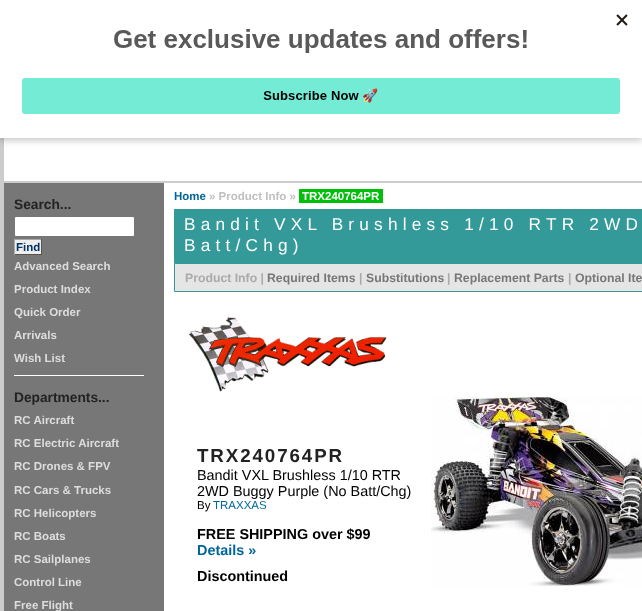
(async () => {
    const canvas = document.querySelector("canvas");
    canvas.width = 642;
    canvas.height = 611;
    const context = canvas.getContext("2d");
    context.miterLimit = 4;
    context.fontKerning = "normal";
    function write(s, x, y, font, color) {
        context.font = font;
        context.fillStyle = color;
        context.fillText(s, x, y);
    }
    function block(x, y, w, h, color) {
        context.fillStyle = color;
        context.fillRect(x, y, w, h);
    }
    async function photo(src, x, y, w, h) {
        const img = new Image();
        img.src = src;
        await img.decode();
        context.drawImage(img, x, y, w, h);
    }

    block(0, 0, 642, 611, "rgb(255, 255, 255)");
    context.strokeStyle = "rgb(204, 204, 204)";
    context.lineWidth = 4;
    context.strokeRect(2, 12, 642, 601);
    context.fillStyle = "rgba(0, 0, 0, 0.2)";
    context.filter = "blur(3px)";
    context.beginPath();
    context.rect(0, 3, 642, 138);
    context.fill();
    context.filter = "none";
    block(0, 0, 642, 138, "rgb(255, 255, 255)");
    await photo("media/1.png", 22, 14, 606, 100);
    block(4, 181, 638, 2, "rgb(204, 204, 204)");
    write("Home", 174, 200, "bold 11.5px Liberation Sans", "rgb(0, 102, 153)");
    write("» Product Info »", 209, 200, "bold 11.5px Liberation Sans", "rgb(192, 192, 192)");
    block(299, 189, 84, 14, "rgb(0, 191, 9)");
    write("TRX240764PR", 302, 200, "bold 11.5px Liberation Sans", "rgb(255, 255, 255)");
    block(4, 183, 160, 428, "rgb(119, 119, 119)");
    write("Search...", 14, 209, "bold 13.75px Liberation Sans", "rgb(34, 34, 34)");
    context.fillStyle = "rgb(255, 255, 255)";
    context.beginPath();
    context.roundRect(14.5, 216.5, 120, 20, 1.5);
    context.fill();
    context.strokeStyle = "rgb(118, 118, 118)";
    context.lineWidth = 1;
    context.stroke();
    block(15, 240, 26, 14, "rgb(238, 238, 238)");
    block(14, 239, 28, 1, "rgb(170, 170, 170)");
    block(41, 239, 1, 16, "rgb(88, 83, 75)");
    block(14, 254, 28, 1, "rgb(88, 83, 75)");
    block(14, 239, 1, 16, "rgb(170, 170, 170)");
    write("Find", 16, 251, "bold 11.5px Liberation Sans", "rgb(0, 51, 102)");
    write("Advanced Search", 14, 270, "bold 11.5px Liberation Sans", "rgb(221, 221, 221)");
    write("Product Index", 14, 293, "bold 11.5px Liberation Sans", "rgb(221, 221, 221)");
    write("Quick Order", 14, 316, "bold 11.5px Liberation Sans", "rgb(221, 221, 221)");
    write("Arrivals", 14, 339, "bold 11.5px Liberation Sans", "rgb(221, 221, 221)");
    write("Wish List", 14, 362, "bold 11.5px Liberation Sans", "rgb(221, 221, 221)");
    block(14, 375, 130, 1, "rgb(255, 255, 255)");
    write("Departments...", 14, 402, "bold 13.75px Liberation Sans", "rgb(34, 34, 34)");
    write("RC Aircraft", 14, 424, "bold 11.5px Liberation Sans", "rgb(221, 221, 221)");
    write("RC Electric Aircraft", 14, 447, "bold 11.5px Liberation Sans", "rgb(221, 221, 221)");
    write("RC Drones & FPV", 14, 470, "bold 11.5px Liberation Sans", "rgb(221, 221, 221)");
    write("RC Cars & Trucks", 14, 494, "bold 11.5px Liberation Sans", "rgb(221, 221, 221)");
    write("RC Helicopters", 14, 517, "bold 11.5px Liberation Sans", "rgb(221, 221, 221)");
    write("RC Boats", 14, 540, "bold 11.5px Liberation Sans", "rgb(221, 221, 221)");
    write("RC Sailplanes", 14, 563, "bold 11.5px Liberation Sans", "rgb(221, 221, 221)");
    write("Control Line", 14, 586, "bold 11.5px Liberation Sans", "rgb(221, 221, 221)");
    write("Free Flight", 14, 609, "bold 11.5px Liberation Sans", "rgb(221, 221, 221)");
    block(174, 209, 468, 54, "rgb(51, 153, 153)");
    context.letterSpacing = "5.2px";
    write("Bandit VXL Brushless 1/10 RTR 2WD", 184, 230, "17.25px Liberation Sans", "rgb(255, 255, 255)");
    write("Batt/Chg)", 184, 251, "17.25px Liberation Sans", "rgb(255, 255, 255)");
    context.fillStyle = "rgb(229, 229, 229)";
    context.beginPath();
    context.rect(174.5, 263.5, 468, 28);
    context.fill();
    context.strokeStyle = "rgb(51, 153, 153)";
    context.stroke();
    context.letterSpacing = "0px";
    write("Product Info |", 185, 282, "bold 12.25px Liberation Sans", "rgb(170, 170, 170)");
    write("Required Items", 267, 282, "bold 12.25px Liberation Sans", "rgb(119, 119, 119)");
    write("|", 359, 282, "bold 12.25px Liberation Sans", "rgb(170, 170, 170)");
    write("Substitutions", 366, 282, "bold 12.25px Liberation Sans", "rgb(119, 119, 119)");
    write("|", 447, 282, "bold 12.25px Liberation Sans", "rgb(170, 170, 170)");
    write("Replacement Parts", 454, 282, "bold 12.25px Liberation Sans", "rgb(119, 119, 119)");
    write("|", 568, 282, "bold 12.25px Liberation Sans", "rgb(170, 170, 170)");
    write("Optional Ite", 575, 282, "bold 12.25px Liberation Sans", "rgb(119, 119, 119)");
    await photo("media/2.png", 189, 317, 198, 75);
    context.letterSpacing = "1.9px";
    write("TRX240764PR", 197, 462, "bold 18.75px Liberation Sans", "rgb(34, 34, 34)");
    context.letterSpacing = "0px";
    write("Bandit VXL Brushless 1/10 RTR", 197, 480, "14.4px Liberation Sans", "rgb(0, 0, 0)");
    write("2WD Buggy Purple (No Batt/Chg)", 197, 496, "14.4px Liberation Sans", "rgb(0, 0, 0)");
    write("By", 197, 509, "11.5px Liberation Sans", "rgb(0, 0, 0)");
    write("TRAXXAS", 213, 509, "11.5px Liberation Sans", "rgb(0, 102, 153)");
    write("FREE SHIPPING over $99", 197, 539, "bold 14.4px Liberation Sans", "rgb(0, 0, 0)");
    write("Details »", 197, 555, "bold 14.4px Liberation Sans", "rgb(0, 102, 153)");
    write("Discontinued", 197, 581, "bold 14.4px Liberation Sans", "rgb(0, 0, 0)");
    await photo("media/3.png", 431, 397, 211, 189);
})();
